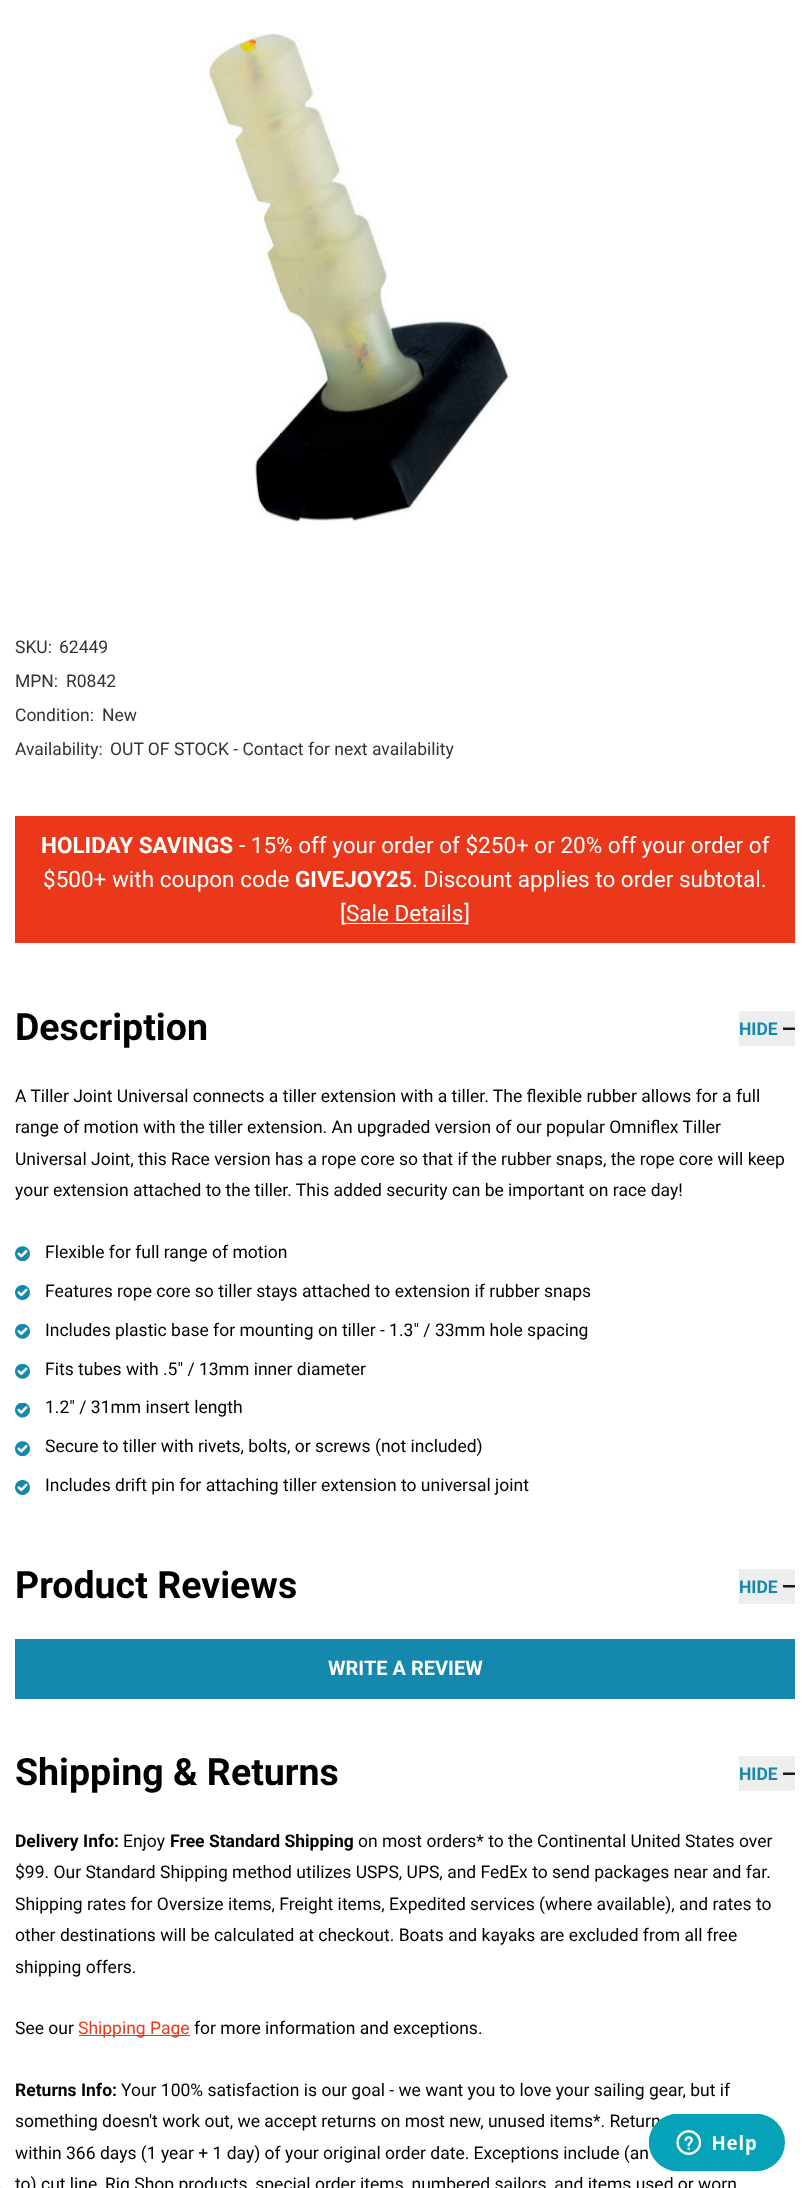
(async () => {
    const canvas = document.querySelector("canvas");
    canvas.width = 809;
    canvas.height = 2188;
    const context = canvas.getContext("2d");
    context.miterLimit = 4;
    context.fontKerning = "normal";
    function write(s, x, y, font, color) {
        context.font = font;
        context.fillStyle = color;
        context.fillText(s, x, y);
    }
    function block(x, y, w, h, color) {
        context.fillStyle = color;
        context.fillRect(x, y, w, h);
    }
    async function photo(src, x, y, w, h) {
        const img = new Image();
        img.src = src;
        await img.decode();
        context.drawImage(img, x, y, w, h);
    }

    block(0, 0, 809, 2188, "rgb(255, 255, 255)");
    await photo("media/1.png", 207, 33, 304, 493);
    write("SKU:", 15, 653, "17.5px Roboto", "rgb(51, 51, 51)");
    write("62449", 59, 653, "17.5px Roboto", "rgb(51, 51, 51)");
    write("MPN:", 15, 687, "17.5px Roboto", "rgb(51, 51, 51)");
    write("R0842", 66, 687, "17.5px Roboto", "rgb(51, 51, 51)");
    write("Condition:", 15, 721, "17.5px Roboto", "rgb(51, 51, 51)");
    write("New", 102, 721, "17.5px Roboto", "rgb(51, 51, 51)");
    write("Availability:", 15, 755, "17.5px Roboto", "rgb(51, 51, 51)");
    write("OUT OF STOCK - Contact for next availability", 110, 755, "17.5px Roboto", "rgb(51, 51, 51)");
    block(15, 816, 780, 127, "rgb(235, 56, 27)");
    write("HOLIDAY SAVINGS", 41, 853, "bold 22.5px Roboto", "rgb(255, 255, 255)");
    write("- 15% off your order of $250+ or 20% off your order of", 239, 853, "22.5px Roboto", "rgb(255, 255, 255)");
    write("$500+ with coupon code", 43, 887, "22.5px Roboto", "rgb(255, 255, 255)");
    write("GIVEJOY25", 295, 887, "bold 22.5px Roboto", "rgb(255, 255, 255)");
    write(". Discount applies to order subtotal.", 412, 887, "22.5px Roboto", "rgb(255, 255, 255)");
    write("[Sale Details", 340, 921, "22.5px Roboto", "rgb(255, 255, 255)");
    block(346, 923, 118, 1, "rgb(255, 255, 255)");
    write("]", 464, 921, "22.5px Roboto", "rgb(255, 255, 255)");
    write("Description", 15, 1040, "bold 37.5px Roboto", "rgb(0, 0, 0)");
    block(739, 1011, 56, 35, "rgb(238, 238, 238)");
    write("HIDE", 739, 1035, "bold 17.5px Roboto", "rgb(21, 137, 173)");
    context.save();
    context.beginPath();
    context.rect(783, 1023, 12, 12);
    context.clip();
    context.fillStyle = "rgb(26, 26, 26)";
    context.beginPath();
    context.moveTo(782.5, 1030);
    context.lineTo(782.5, 1027.5);
    context.lineTo(795, 1027.5);
    context.lineTo(795, 1030);
    context.fill();
    context.restore();
    write("A Tiller Joint Universal connects a tiller extension with a tiller. The flexible rubber allows for a full", 15, 1102, "17.5px Roboto", "rgb(0, 0, 0)");
    write("range of motion with the tiller extension. An upgraded version of our popular Omniflex Tiller", 15, 1133, "17.5px Roboto", "rgb(0, 0, 0)");
    write("Universal Joint, this Race version has a rope core so that if the rubber snaps, the rope core will keep", 15, 1165, "17.5px Roboto", "rgb(0, 0, 0)");
    write("your extension attached to the tiller. This added security can be important on race day!", 15, 1196, "17.5px Roboto", "rgb(0, 0, 0)");
    await photo("media/2.png", 15, 1246, 15, 15);
    write("Flexible for full range of motion", 45, 1258, "17.5px Roboto", "rgb(0, 0, 0)");
    await photo("media/3.png", 15, 1285, 15, 15);
    write("Features rope core so tiller stays attached to extension if rubber snaps", 45, 1297, "17.5px Roboto", "rgb(0, 0, 0)");
    await photo("media/4.png", 15, 1324, 15, 15);
    write("Includes plastic base for mounting on tiller - 1.3\" / 33mm hole spacing", 45, 1336, "17.5px Roboto", "rgb(0, 0, 0)");
    await photo("media/4.png", 15, 1364, 15, 15);
    write("Fits tubes with .5\" / 13mm inner diameter", 45, 1375, "17.5px Roboto", "rgb(0, 0, 0)");
    await photo("media/5.png", 15, 1403, 15, 15);
    write("1.2\" / 31mm insert length", 45, 1413, "17.5px Roboto", "rgb(0, 0, 0)");
    await photo("media/2.png", 15, 1441, 15, 15);
    write("Secure to tiller with rivets, bolts, or screws (not included)", 45, 1452, "17.5px Roboto", "rgb(0, 0, 0)");
    await photo("media/3.png", 15, 1480, 15, 15);
    write("Includes drift pin for attaching tiller extension to universal joint", 45, 1491, "17.5px Roboto", "rgb(0, 0, 0)");
    write("Product Reviews", 15, 1598, "bold 37.5px Roboto", "rgb(0, 0, 0)");
    block(739, 1569, 56, 35, "rgb(238, 238, 238)");
    write("HIDE", 739, 1593, "bold 17.5px Roboto", "rgb(21, 137, 173)");
    context.save();
    context.beginPath();
    context.rect(783, 1580, 12, 13);
    context.clip();
    context.fillStyle = "rgb(26, 26, 26)";
    context.beginPath();
    context.moveTo(782.5, 1587.5);
    context.lineTo(782.5, 1585);
    context.lineTo(795, 1585);
    context.lineTo(795, 1587.5);
    context.fill();
    context.restore();
    block(15, 1639, 780, 60, "rgb(21, 137, 173)");
    write("WRITE A REVIEW", 328, 1675, "bold 20px Roboto", "rgb(255, 255, 255)");
    write("Shipping & Returns", 15, 1785, "bold 37.5px Roboto", "rgb(0, 0, 0)");
    block(739, 1756, 56, 35, "rgb(238, 238, 238)");
    write("HIDE", 739, 1780, "bold 17.5px Roboto", "rgb(21, 137, 173)");
    context.save();
    context.beginPath();
    context.rect(783, 1768, 12, 12);
    context.clip();
    context.fillStyle = "rgb(26, 26, 26)";
    context.beginPath();
    context.moveTo(782.5, 1775);
    context.lineTo(782.5, 1772.5);
    context.lineTo(795, 1772.5);
    context.lineTo(795, 1775);
    context.fill();
    context.restore();
    write("Delivery Info:", 15, 1847, "bold 17.5px Roboto", "rgb(0, 0, 0)");
    write("Enjoy", 123, 1847, "17.5px Roboto", "rgb(0, 0, 0)");
    write("Free Standard Shipping", 170, 1847, "bold 17.5px Roboto", "rgb(0, 0, 0)");
    write("on most orders* to the Continental United States over", 358, 1847, "17.5px Roboto", "rgb(0, 0, 0)");
    write("$99. Our Standard Shipping method utilizes USPS, UPS, and FedEx to send packages near and far.", 15, 1878, "17.5px Roboto", "rgb(0, 0, 0)");
    write("Shipping rates for Oversize items, Freight items, Expedited services (where available), and rates to", 15, 1910, "17.5px Roboto", "rgb(0, 0, 0)");
    write("other destinations will be calculated at checkout. Boats and kayaks are excluded from all free", 15, 1941, "17.5px Roboto", "rgb(0, 0, 0)");
    write("shipping offers.", 15, 1973, "17.5px Roboto", "rgb(0, 0, 0)");
    write("See our", 15, 2034, "17.5px Roboto", "rgb(0, 0, 0)");
    block(79, 2035, 111, 1, "rgb(235, 56, 27)");
    write("Shipping Page", 78, 2034, "17.5px Roboto", "rgb(235, 56, 27)");
    write("for more information and exceptions.", 194, 2034, "17.5px Roboto", "rgb(0, 0, 0)");
    write("Returns Info:", 15, 2096, "bold 17.5px Roboto", "rgb(0, 0, 0)");
    write("Your 100% satisfaction is our goal - we want you to love your sailing gear, but if", 121, 2096, "17.5px Roboto", "rgb(0, 0, 0)");
    write("something doesn't work out, we accept returns on most new, unused items*. Return", 15, 2127, "17.5px Roboto", "rgb(0, 0, 0)");
    write("within 366 days (1 year + 1 day) of your original order date. Exceptions include (an", 15, 2159, "17.5px Roboto", "rgb(0, 0, 0)");
    write("to) cut line, Rig Shop products, special order items, numbered sailors, and items used or worn", 15, 2190, "17.5px Roboto", "rgb(0, 0, 0)");
    await photo("media/6.png", 649, 2114, 136, 58);
    block(0, 2186, 3, 2, "rgb(245, 245, 245)");
})();
